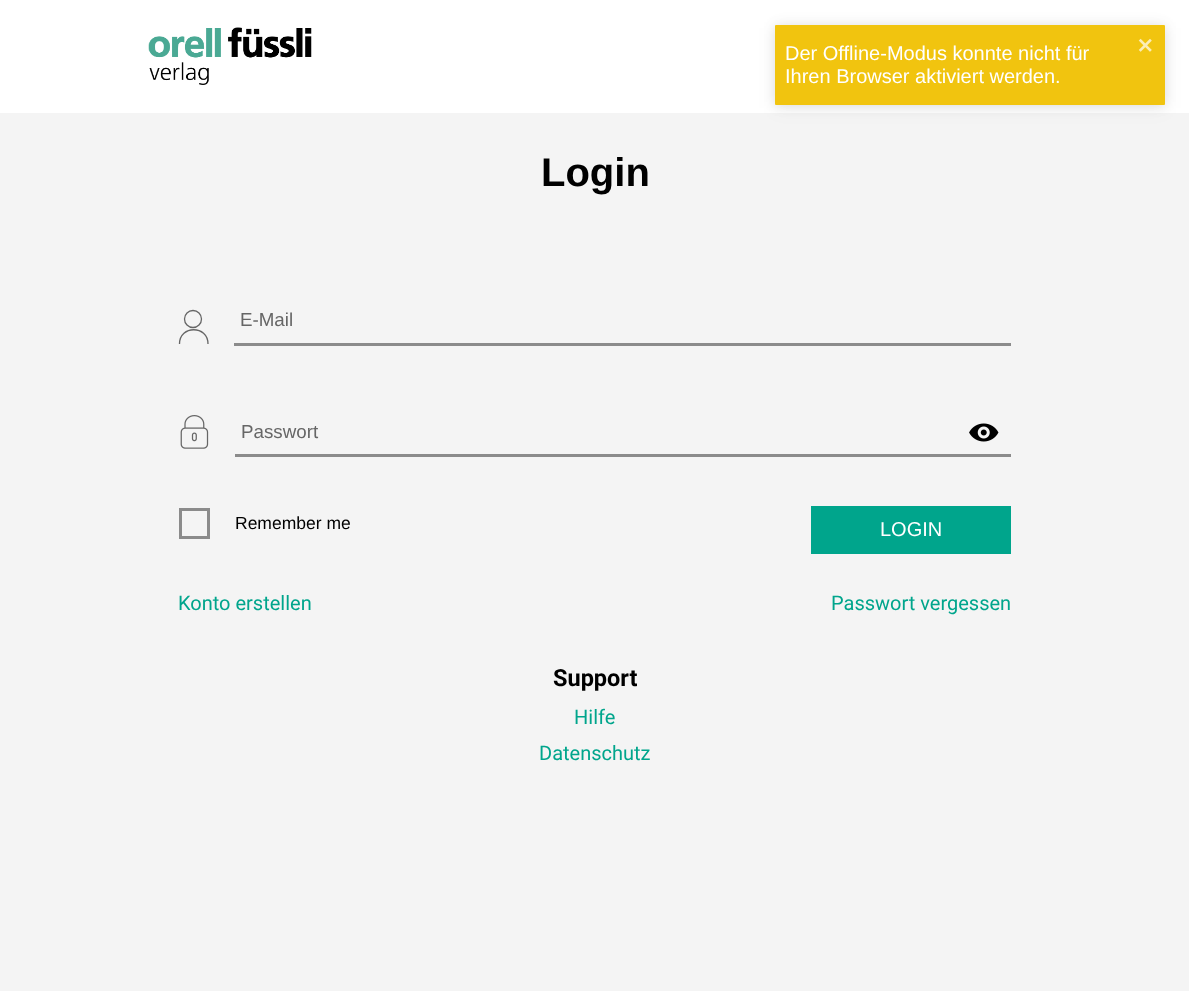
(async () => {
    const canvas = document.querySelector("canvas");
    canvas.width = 1189;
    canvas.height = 991;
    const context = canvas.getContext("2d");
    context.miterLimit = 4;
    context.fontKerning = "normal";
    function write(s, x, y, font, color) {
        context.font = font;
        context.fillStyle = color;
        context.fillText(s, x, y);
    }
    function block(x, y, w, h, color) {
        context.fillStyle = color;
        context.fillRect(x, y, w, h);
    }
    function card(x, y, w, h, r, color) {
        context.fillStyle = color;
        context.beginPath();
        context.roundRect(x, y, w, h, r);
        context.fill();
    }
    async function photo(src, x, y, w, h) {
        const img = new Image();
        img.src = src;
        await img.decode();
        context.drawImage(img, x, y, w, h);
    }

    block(0, 0, 1189, 991, "rgb(255, 255, 255)");
    block(0, 113, 1189, 878, "rgb(244, 244, 244)");
    context.fillStyle = "rgba(0, 0, 0, 0.05)";
    context.filter = "blur(9.5px)";
    context.beginPath();
    context.roundRect(775, 28, 390, 80, 1);
    context.fill();
    context.filter = "none";
    context.fillStyle = "rgba(0, 0, 0, 0.1)";
    context.filter = "blur(6px)";
    context.beginPath();
    context.roundRect(775, 26, 390, 80, 1);
    context.fill();
    context.filter = "none";
    card(775, 25, 390, 80, 1, "rgb(241, 196, 15)");
    write("Der Offline-Modus konnte nicht für", 785, 60, "20px Liberation Sans", "rgb(255, 255, 255)");
    write("Ihren Browser aktiviert werden.", 785, 83, "20px Liberation Sans", "rgb(255, 255, 255)");
    await photo("media/1.png", 1138, 38, 14, 14);
    await photo("media/2.png", 148, 27, 164, 58);
    write("Login", 541, 186, "bold 40px Liberation Sans", "rgb(0, 0, 0)");
    context.beginPath();
    context.arc(193, 319, 8.5, 0, Math.PI * 2);
    context.strokeStyle = "rgb(102, 102, 102)";
    context.lineWidth = 1.3;
    context.stroke();
    context.beginPath();
    context.moveTo(179.5, 344);
    context.bezierCurveTo(179.5, 325, 208, 325, 208, 344);
    context.stroke();
    block(234, 343, 777, 3, "rgb(139, 139, 139)");
    write("E-Mail", 240, 326, "18.75px Liberation Sans", "rgb(102, 102, 102)");
    await photo("media/3.png", 180, 415, 29, 34);
    block(235, 454, 776, 3, "rgb(139, 139, 139)");
    write("Passwort", 241, 438, "18.75px Liberation Sans", "rgb(102, 102, 102)");
    await photo("media/4.png", 969, 423, 30, 19);
    context.strokeStyle = "rgb(139, 139, 139)";
    context.lineWidth = 3;
    context.strokeRect(180.5, 509.5, 28, 28);
    write("Remember me", 235, 529, "17.5px Liberation Sans", "rgb(0, 0, 0)");
    block(811, 506, 200, 48, "rgb(0, 165, 140)");
    write("LOGIN", 880, 536, "20px Liberation Sans", "rgb(255, 255, 255)");
    write("Konto erstellen", 178, 610, "20px Roboto", "rgb(0, 165, 140)");
    write("Passwort vergessen", 831, 610, "20px Roboto", "rgb(0, 165, 140)");
    write("Support", 553, 686, "bold 23.5px Roboto", "rgb(0, 0, 0)");
    write("Hilfe", 574, 724, "20px Roboto", "rgb(0, 165, 140)");
    write("Datenschutz", 539, 760, "20px Roboto", "rgb(0, 165, 140)");
})();
